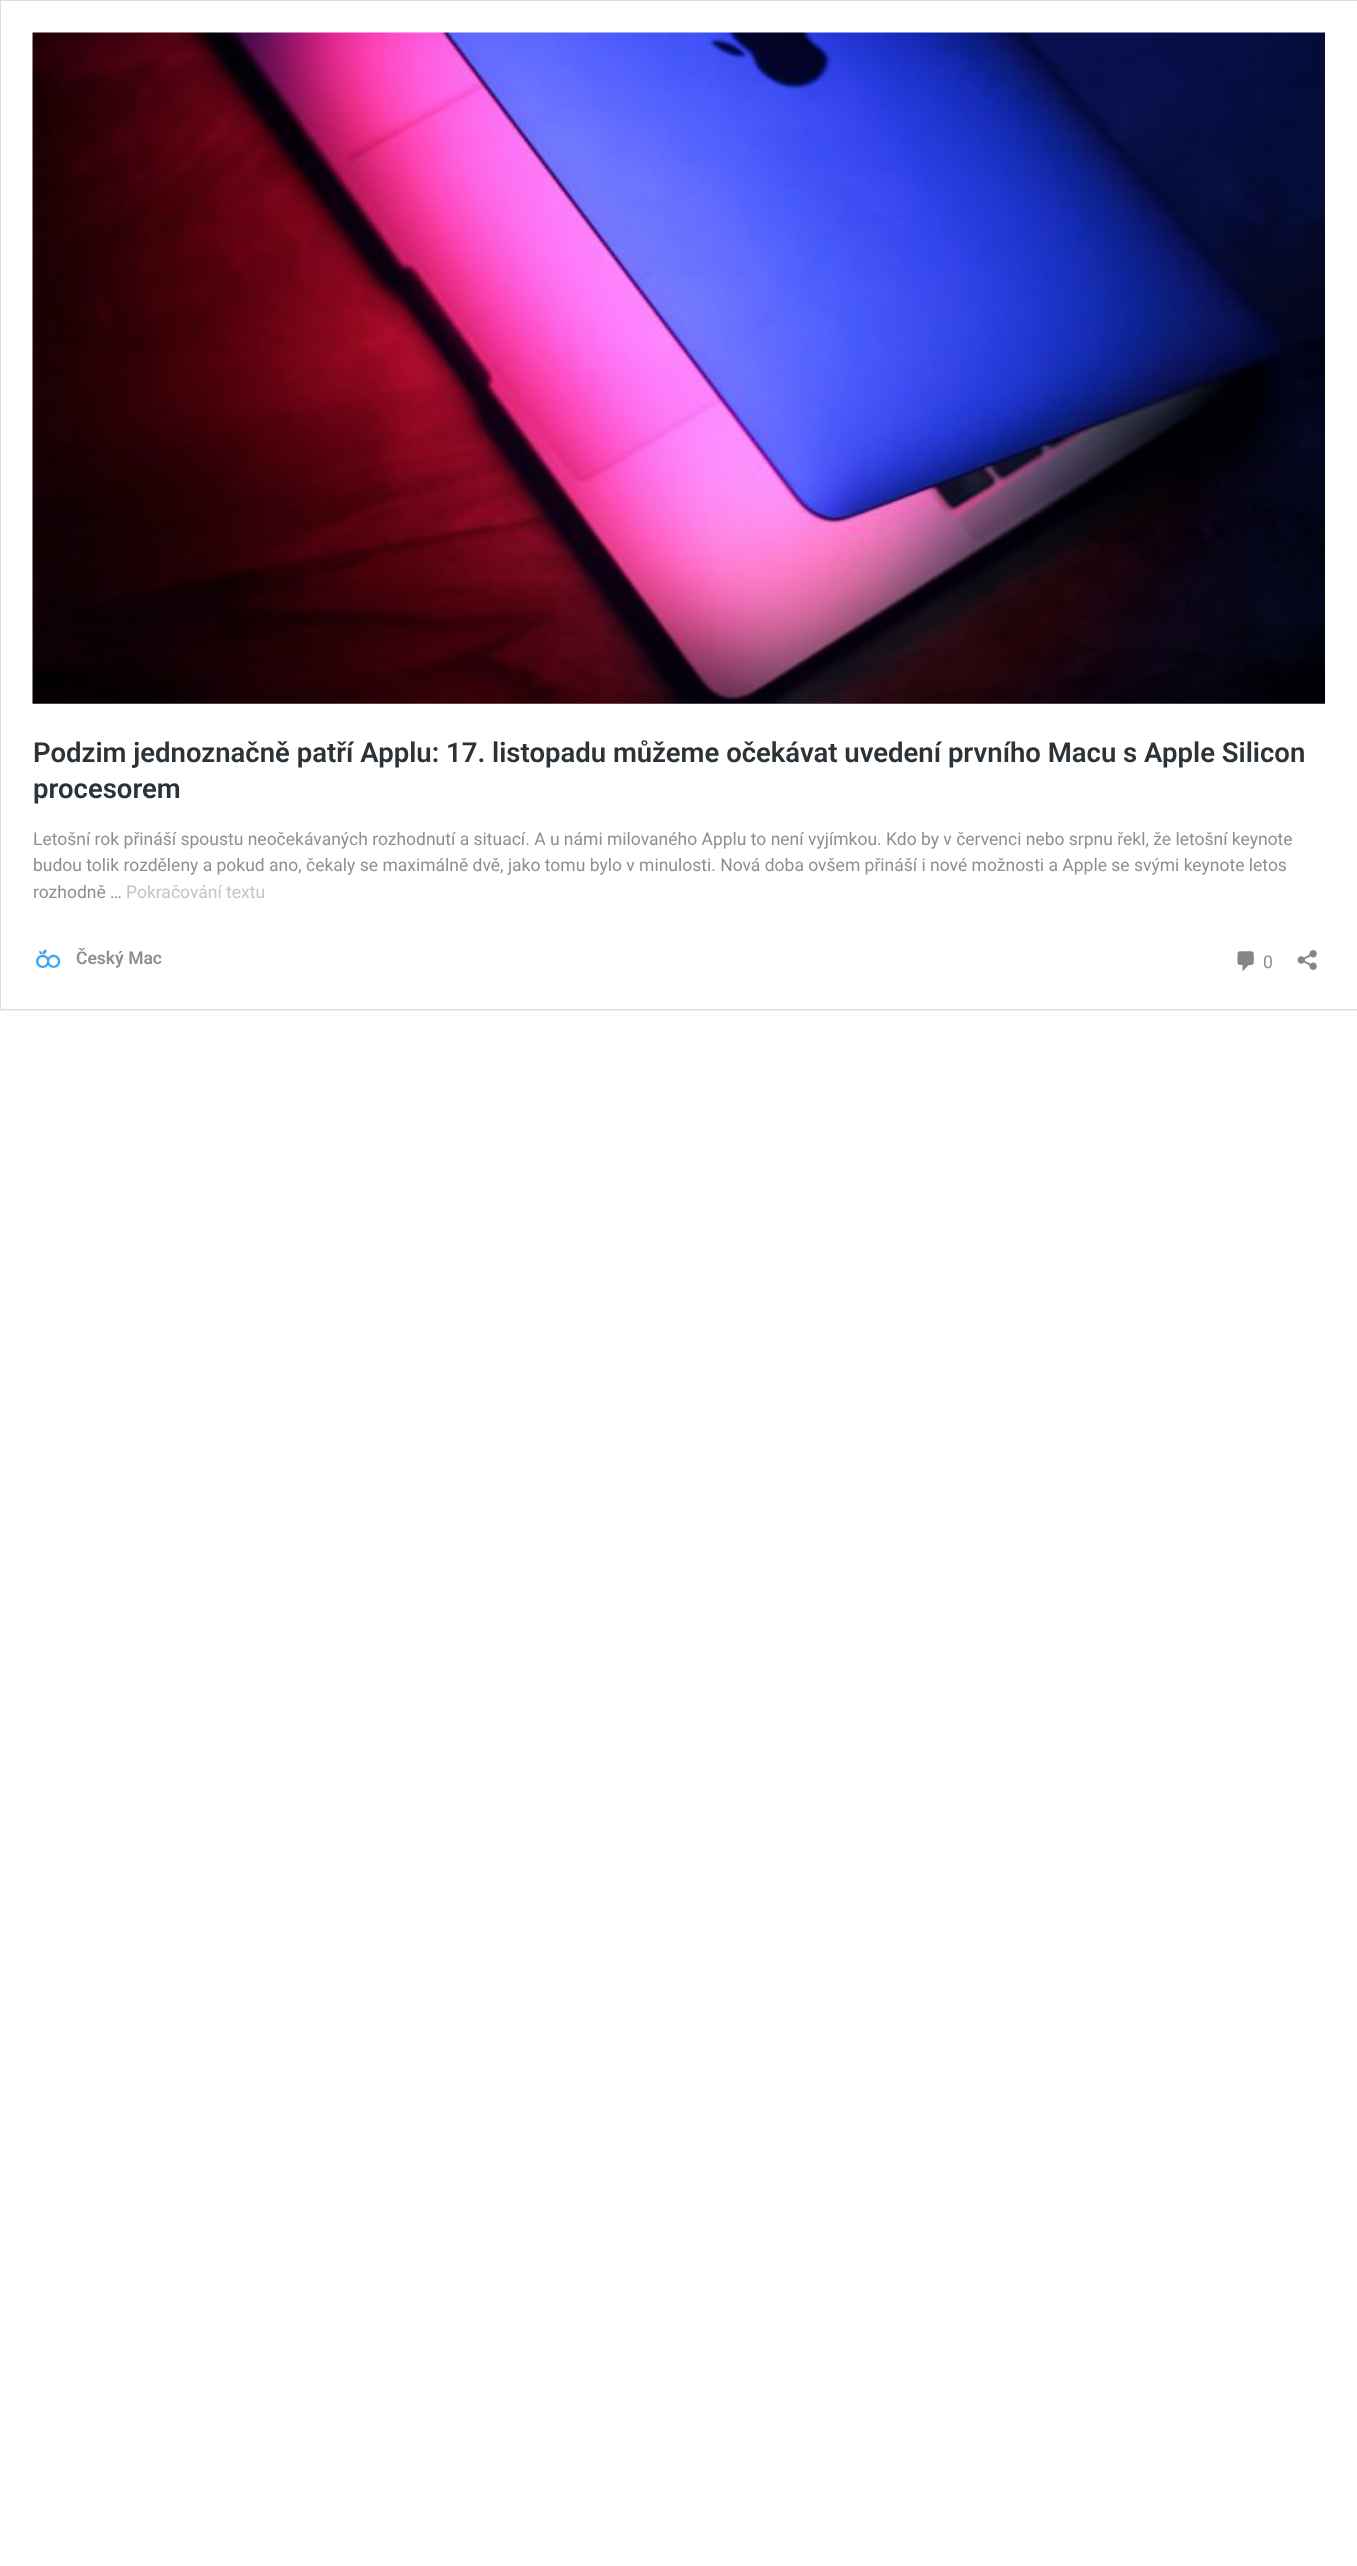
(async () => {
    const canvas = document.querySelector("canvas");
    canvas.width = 1357;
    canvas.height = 2566;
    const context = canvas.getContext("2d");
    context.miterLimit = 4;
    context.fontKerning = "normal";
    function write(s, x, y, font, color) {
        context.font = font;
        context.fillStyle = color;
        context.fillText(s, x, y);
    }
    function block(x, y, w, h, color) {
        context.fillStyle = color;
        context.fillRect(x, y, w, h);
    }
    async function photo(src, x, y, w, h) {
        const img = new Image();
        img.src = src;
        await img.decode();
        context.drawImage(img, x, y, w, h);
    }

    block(0, 0, 1357, 2566, "rgb(255, 255, 255)");
    context.save();
    context.beginPath();
    context.rect(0, 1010, 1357, 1);
    context.clip();
    context.fillStyle = "rgba(0, 0, 0, 0.05)";
    context.filter = "blur(0.5px)";
    context.beginPath();
    context.rect(0, 1, 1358, 1010);
    context.fill();
    context.filter = "none";
    context.restore();
    context.strokeStyle = "rgb(220, 220, 222)";
    context.strokeRect(0.5, 0.5, 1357, 1009);
    await photo("media/1.png", 32, 32, 1293, 672);
    write("Podzim jednoznačně patří Applu: 17. listopadu můžeme očekávat uvedení prvního Macu s Apple Silicon", 33, 762, "600 27.5px Roboto", "rgb(44, 51, 56)");
    write("procesorem", 33, 798, "600 27.5px Roboto", "rgb(44, 51, 56)");
    write("Letošní rok přináší spoustu neočekávaných rozhodnutí a situací. A u námi milovaného Applu to není vyjímkou. Kdo by v červenci nebo srpnu řekl, že letošní keynote", 33, 845, "17.5px Roboto", "rgb(140, 143, 148)");
    write("budou tolik rozděleny a pokud ano, čekaly se maximálně dvě, jako tomu bylo v minulosti. Nová doba ovšem přináší i nové možnosti a Apple se svými keynote letos", 33, 871, "17.5px Roboto", "rgb(140, 143, 148)");
    write("rozhodně …", 33, 898, "17.5px Roboto", "rgb(140, 143, 148)");
    write("Pokračování textu", 126, 898, "17.5px Roboto", "rgb(195, 196, 199)");
    await photo("media/2.png", 35, 949, 26, 19);
    write("Český Mac", 76, 964, "600 17.5px Roboto", "rgb(140, 143, 148)");
    await photo("media/3.png", 1237, 951, 17, 20);
    write("0", 1263, 968, "17.5px Roboto", "rgb(140, 143, 148)");
    await photo("media/4.png", 1297, 950, 20, 20);
})();
